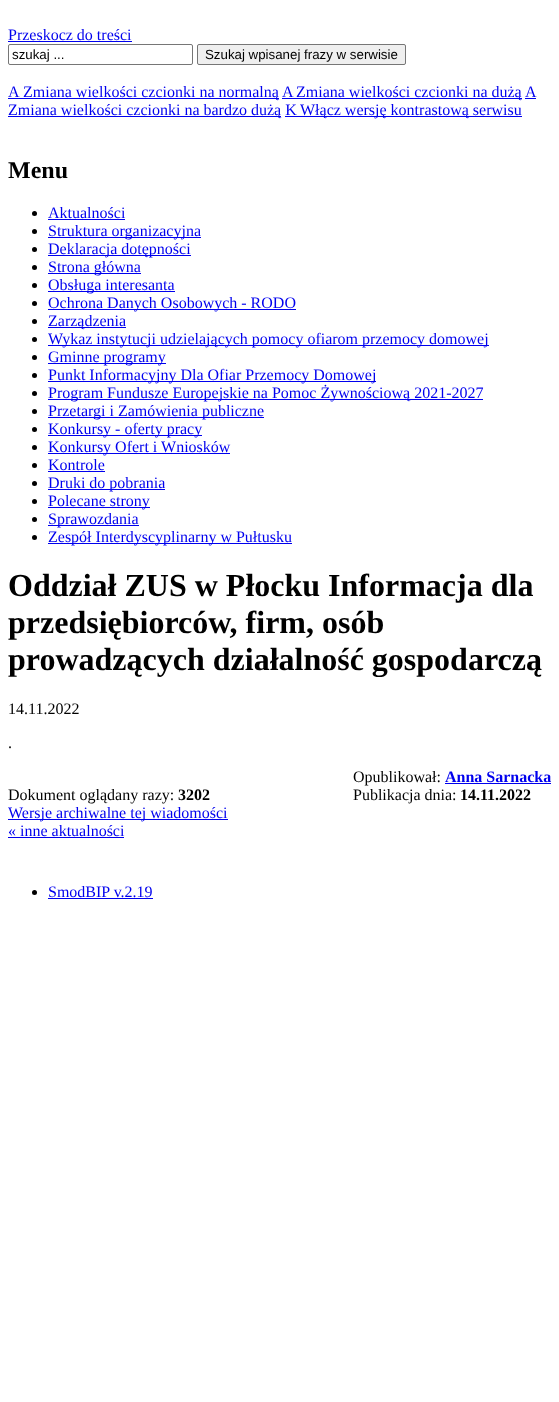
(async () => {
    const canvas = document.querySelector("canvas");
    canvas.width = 559;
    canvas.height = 1402;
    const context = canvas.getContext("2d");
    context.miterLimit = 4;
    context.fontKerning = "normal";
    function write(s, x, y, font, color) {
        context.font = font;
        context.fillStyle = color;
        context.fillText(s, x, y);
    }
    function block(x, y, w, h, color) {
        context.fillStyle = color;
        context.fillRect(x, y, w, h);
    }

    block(0, 0, 559, 1402, "rgb(255, 255, 255)");
    write("Przeskocz do treści", 8, 40, "16px Liberation Serif", "rgb(0, 0, 238)");
    block(8, 41, 124, 1, "rgb(0, 0, 238)");
    context.beginPath();
    context.roundRect(8.5, 44.5, 184, 20, 1.5);
    context.strokeStyle = "rgb(118, 118, 118)";
    context.stroke();
    write("szukaj ...", 12, 59, "13.3px Liberation Sans", "rgb(0, 0, 0)");
    context.fillStyle = "rgb(239, 239, 239)";
    context.beginPath();
    context.roundRect(197.5, 44.5, 208, 20, 1.5);
    context.fill();
    context.stroke();
    write("Szukaj wpisanej frazy w serwisie", 205, 59, "13.3px Liberation Sans", "rgb(0, 0, 0)");
    write("A", 8, 97, "16px Liberation Serif", "rgb(0, 0, 238)");
    block(8, 98, 271, 1, "rgb(0, 0, 238)");
    write("Zmiana wielkości czcionki na normalną", 23, 97, "16px Liberation Serif", "rgb(0, 0, 238)");
    write("A", 282, 97, "16px Liberation Serif", "rgb(0, 0, 238)");
    block(282, 98, 240, 1, "rgb(0, 0, 238)");
    write("Zmiana wielkości czcionki na dużą", 296, 97, "16px Liberation Serif", "rgb(0, 0, 238)");
    write("A", 525, 97, "16px Liberation Serif", "rgb(0, 0, 238)");
    block(525, 98, 11, 1, "rgb(0, 0, 238)");
    block(8, 116, 273, 1, "rgb(0, 0, 238)");
    write("Zmiana wielkości czcionki na bardzo dużą K", 8, 115, "16px Liberation Serif", "rgb(0, 0, 238)");
    block(285, 116, 237, 1, "rgb(0, 0, 238)");
    write("Włącz wersję kontrastową serwisu", 300, 115, "16px Liberation Serif", "rgb(0, 0, 238)");
    write("Menu", 8, 178, "bold 24px Liberation Serif", "rgb(0, 0, 0)");
    context.beginPath();
    context.arc(34.5, 213.5, 2.5, 0, Math.PI * 2);
    context.fill();
    write("Aktualności", 48, 218, "16px Liberation Serif", "rgb(0, 0, 238)");
    block(48, 219, 77, 1, "rgb(0, 0, 238)");
    context.fillStyle = "rgb(0, 0, 0)";
    context.beginPath();
    context.arc(34.5, 231.5, 2.5, 0, Math.PI * 2);
    context.fill();
    block(48, 237, 153, 1, "rgb(0, 0, 238)");
    write("Struktura organizacyjna", 48, 236, "16px Liberation Serif", "rgb(0, 0, 238)");
    context.fillStyle = "rgb(0, 0, 0)";
    context.beginPath();
    context.arc(34.5, 249.5, 2.5, 0, Math.PI * 2);
    context.fill();
    block(48, 255, 143, 1, "rgb(0, 0, 238)");
    write("Deklaracja dotępności", 48, 254, "16px Liberation Serif", "rgb(0, 0, 238)");
    context.fillStyle = "rgb(0, 0, 0)";
    context.beginPath();
    context.arc(34.5, 267.5, 2.5, 0, Math.PI * 2);
    context.fill();
    block(48, 273, 93, 1, "rgb(0, 0, 238)");
    write("Strona główna", 48, 272, "16px Liberation Serif", "rgb(0, 0, 238)");
    context.fillStyle = "rgb(0, 0, 0)";
    context.beginPath();
    context.arc(34.5, 285.5, 2.5, 0, Math.PI * 2);
    context.fill();
    block(48, 291, 127, 1, "rgb(0, 0, 238)");
    write("Obsługa interesanta", 48, 290, "16px Liberation Serif", "rgb(0, 0, 238)");
    context.fillStyle = "rgb(0, 0, 0)";
    context.beginPath();
    context.arc(34.5, 303.5, 2.5, 0, Math.PI * 2);
    context.fill();
    block(48, 309, 248, 1, "rgb(0, 0, 238)");
    write("Ochrona Danych Osobowych - RODO", 48, 308, "16px Liberation Serif", "rgb(0, 0, 238)");
    context.fillStyle = "rgb(0, 0, 0)";
    context.beginPath();
    context.arc(34.5, 321.5, 2.5, 0, Math.PI * 2);
    context.fill();
    block(48, 327, 78, 1, "rgb(0, 0, 238)");
    write("Zarządzenia", 48, 326, "16px Liberation Serif", "rgb(0, 0, 238)");
    context.fillStyle = "rgb(0, 0, 0)";
    context.beginPath();
    context.arc(34.5, 339.5, 2.5, 0, Math.PI * 2);
    context.fill();
    block(48, 345, 441, 1, "rgb(0, 0, 238)");
    write("Wykaz instytucji udzielających pomocy ofiarom przemocy domowej", 48, 344, "16px Liberation Serif", "rgb(0, 0, 238)");
    context.fillStyle = "rgb(0, 0, 0)";
    context.beginPath();
    context.arc(34.5, 357.5, 2.5, 0, Math.PI * 2);
    context.fill();
    block(48, 363, 118, 1, "rgb(0, 0, 238)");
    write("Gminne programy", 48, 362, "16px Liberation Serif", "rgb(0, 0, 238)");
    context.fillStyle = "rgb(0, 0, 0)";
    context.beginPath();
    context.arc(34.5, 375.5, 2.5, 0, Math.PI * 2);
    context.fill();
    block(48, 381, 328, 1, "rgb(0, 0, 238)");
    write("Punkt Informacyjny Dla Ofiar Przemocy Domowej", 48, 380, "16px Liberation Serif", "rgb(0, 0, 238)");
    context.fillStyle = "rgb(0, 0, 0)";
    context.beginPath();
    context.arc(34.5, 393.5, 2.5, 0, Math.PI * 2);
    context.fill();
    block(48, 399, 435, 1, "rgb(0, 0, 238)");
    write("Program Fundusze Europejskie na Pomoc Żywnościową 2021-2027", 48, 398, "16px Liberation Serif", "rgb(0, 0, 238)");
    context.fillStyle = "rgb(0, 0, 0)";
    context.beginPath();
    context.arc(34.5, 411.5, 2.5, 0, Math.PI * 2);
    context.fill();
    block(48, 417, 216, 1, "rgb(0, 0, 238)");
    write("Przetargi i Zamówienia publiczne", 48, 416, "16px Liberation Serif", "rgb(0, 0, 238)");
    context.fillStyle = "rgb(0, 0, 0)";
    context.beginPath();
    context.arc(34.5, 429.5, 2.5, 0, Math.PI * 2);
    context.fill();
    block(48, 435, 154, 1, "rgb(0, 0, 238)");
    write("Konkursy - oferty pracy", 48, 434, "16px Liberation Serif", "rgb(0, 0, 238)");
    context.fillStyle = "rgb(0, 0, 0)";
    context.beginPath();
    context.arc(34.5, 447.5, 2.5, 0, Math.PI * 2);
    context.fill();
    block(48, 453, 182, 1, "rgb(0, 0, 238)");
    write("Konkursy Ofert i Wniosków", 48, 452, "16px Liberation Serif", "rgb(0, 0, 238)");
    context.fillStyle = "rgb(0, 0, 0)";
    context.beginPath();
    context.arc(34.5, 465.5, 2.5, 0, Math.PI * 2);
    context.fill();
    write("Kontrole", 48, 470, "16px Liberation Serif", "rgb(0, 0, 238)");
    block(48, 471, 57, 1, "rgb(0, 0, 238)");
    context.fillStyle = "rgb(0, 0, 0)";
    context.beginPath();
    context.arc(34.5, 483.5, 2.5, 0, Math.PI * 2);
    context.fill();
    block(48, 489, 117, 1, "rgb(0, 0, 238)");
    write("Druki do pobrania", 48, 488, "16px Liberation Serif", "rgb(0, 0, 238)");
    context.fillStyle = "rgb(0, 0, 0)";
    context.beginPath();
    context.arc(34.5, 501.5, 2.5, 0, Math.PI * 2);
    context.fill();
    block(48, 507, 102, 1, "rgb(0, 0, 238)");
    write("Polecane strony", 48, 506, "16px Liberation Serif", "rgb(0, 0, 238)");
    context.fillStyle = "rgb(0, 0, 0)";
    context.beginPath();
    context.arc(34.5, 519.5, 2.5, 0, Math.PI * 2);
    context.fill();
    block(48, 525, 91, 1, "rgb(0, 0, 238)");
    write("Sprawozdania", 48, 524, "16px Liberation Serif", "rgb(0, 0, 238)");
    context.fillStyle = "rgb(0, 0, 0)";
    context.beginPath();
    context.arc(34.5, 537.5, 2.5, 0, Math.PI * 2);
    context.fill();
    block(48, 543, 244, 1, "rgb(0, 0, 238)");
    write("Zespół Interdyscyplinarny w Pułtusku", 48, 542, "16px Liberation Serif", "rgb(0, 0, 238)");
    write("Oddział ZUS w Płocku Informacja dla", 8, 596, "bold 32px Liberation Serif", "rgb(0, 0, 0)");
    write("przedsiębiorców, firm, osób", 8, 633, "bold 32px Liberation Serif", "rgb(0, 0, 0)");
    write("prowadzących działalność gospodarczą", 8, 670, "bold 32px Liberation Serif", "rgb(0, 0, 0)");
    write("14.11.2022", 8, 714, "16px Liberation Serif", "rgb(0, 0, 0)");
    write(".", 8, 748, "16px Liberation Serif", "rgb(0, 0, 0)");
    write("Dokument oglądany razy:", 8, 800, "16px Liberation Serif", "rgb(0, 0, 0)");
    write("3202", 178, 800, "bold 16px Liberation Serif", "rgb(0, 0, 0)");
    write("Opublikował:", 353, 782, "16px Liberation Serif", "rgb(0, 0, 0)");
    write("Anna Sarnacka", 445, 782, "bold 16px Liberation Serif", "rgb(0, 0, 238)");
    block(445, 783, 106, 1, "rgb(0, 0, 238)");
    write("Publikacja dnia:", 353, 800, "16px Liberation Serif", "rgb(0, 0, 0)");
    write("14.11.2022", 460, 800, "bold 16px Liberation Serif", "rgb(0, 0, 0)");
    block(8, 819, 220, 1, "rgb(0, 0, 238)");
    write("Wersje archiwalne tej wiadomości", 8, 818, "16px Liberation Serif", "rgb(0, 0, 238)");
    write("« inne aktualności", 8, 836, "16px Liberation Serif", "rgb(0, 0, 238)");
    block(8, 837, 116, 1, "rgb(0, 0, 238)");
    context.fillStyle = "rgb(0, 0, 0)";
    context.beginPath();
    context.arc(34.5, 892.5, 2.5, 0, Math.PI * 2);
    context.fill();
    write("SmodBIP v.2.19", 48, 897, "16px Liberation Serif", "rgb(0, 0, 238)");
    block(48, 898, 105, 1, "rgb(0, 0, 238)");
})();
